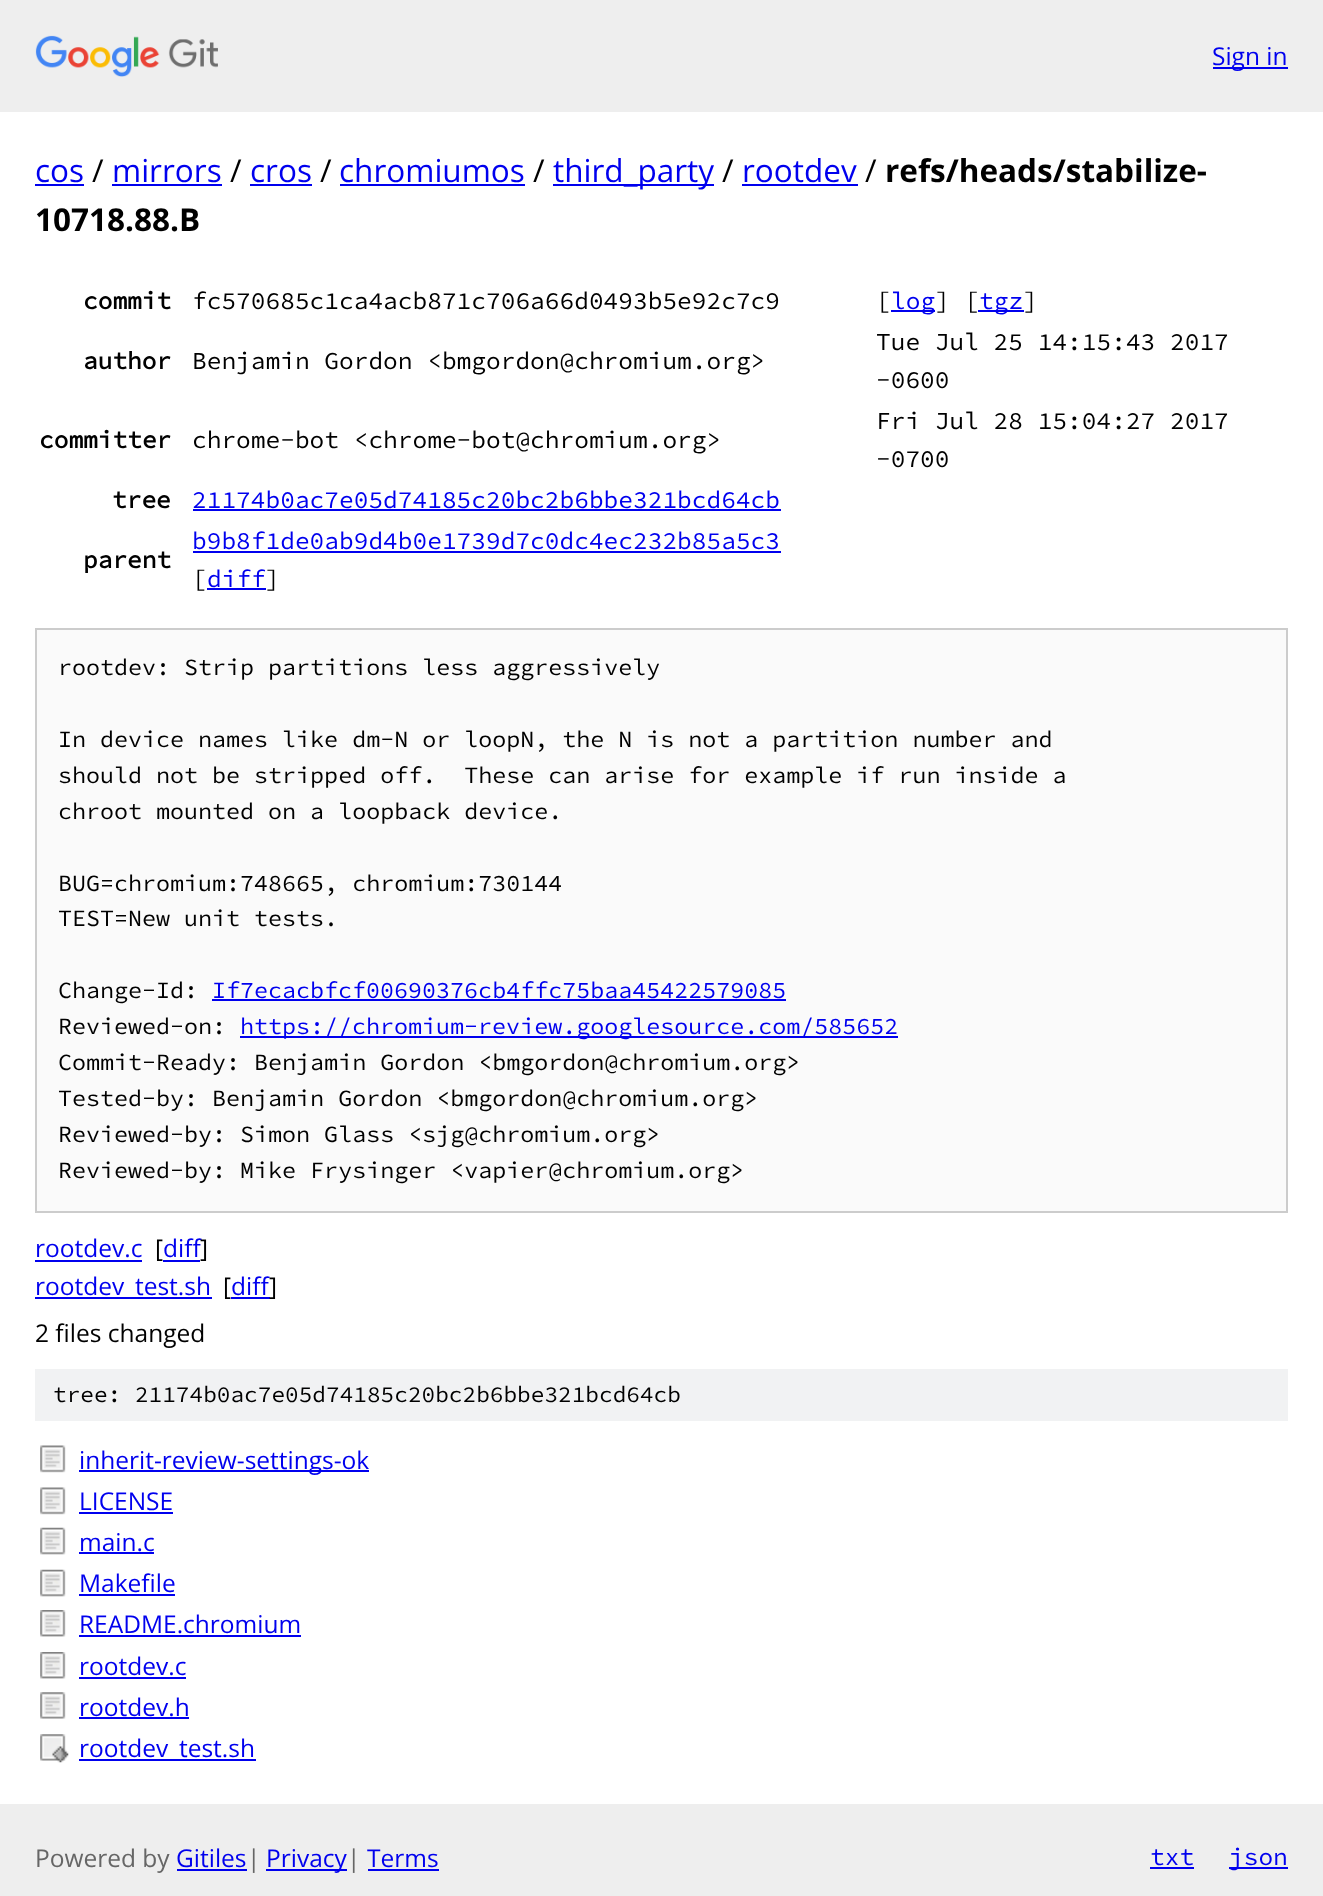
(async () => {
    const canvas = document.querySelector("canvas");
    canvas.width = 1323;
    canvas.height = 1896;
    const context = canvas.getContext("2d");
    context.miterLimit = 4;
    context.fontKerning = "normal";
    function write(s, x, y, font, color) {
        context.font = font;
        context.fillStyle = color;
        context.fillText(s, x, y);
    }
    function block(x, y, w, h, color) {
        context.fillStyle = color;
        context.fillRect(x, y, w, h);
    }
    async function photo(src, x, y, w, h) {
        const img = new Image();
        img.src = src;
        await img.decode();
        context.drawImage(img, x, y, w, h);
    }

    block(0, 0, 1323, 1896, "rgb(255, 255, 255)");
    block(0, 0, 1323, 112, "rgb(238, 238, 238)");
    await photo("media/1.png", 35, 35, 183, 42);
    block(1213, 67, 75, 2, "rgb(0, 0, 238)");
    write("Sign in", 1212, 65, "24.5px Open Sans", "rgb(0, 0, 238)");
    write("cos", 35, 182, "31.5px Open Sans", "rgb(0, 0, 238)");
    block(35, 184, 49, 2, "rgb(0, 0, 238)");
    write("/", 92, 182, "31.5px Open Sans", "rgb(0, 0, 0)");
    write("mirrors", 112, 182, "31.5px Open Sans", "rgb(0, 0, 238)");
    block(112, 184, 110, 2, "rgb(0, 0, 238)");
    write("/", 230, 182, "31.5px Open Sans", "rgb(0, 0, 0)");
    write("cros", 250, 182, "31.5px Open Sans", "rgb(0, 0, 238)");
    block(250, 184, 62, 2, "rgb(0, 0, 238)");
    write("/", 320, 182, "31.5px Open Sans", "rgb(0, 0, 0)");
    write("chromiumos", 339, 182, "31.5px Open Sans", "rgb(0, 0, 238)");
    block(340, 184, 185, 2, "rgb(0, 0, 238)");
    write("/", 533, 182, "31.5px Open Sans", "rgb(0, 0, 0)");
    block(553, 184, 161, 2, "rgb(0, 0, 238)");
    write("third_party", 553, 182, "31.5px Open Sans", "rgb(0, 0, 238)");
    write("/", 722, 182, "31.5px Open Sans", "rgb(0, 0, 0)");
    write("rootdev", 742, 182, "31.5px Open Sans", "rgb(0, 0, 238)");
    block(742, 184, 116, 2, "rgb(0, 0, 238)");
    write("/", 865, 182, "31.5px Open Sans", "rgb(0, 0, 0)");
    write("refs/heads/stabilize-", 885, 182, "bold 31.5px Open Sans", "rgb(0, 0, 0)");
    write("10718.88.B", 35, 231, "bold 31.5px Open Sans", "rgb(0, 0, 0)");
    write("commit", 83, 309, "bold 24.5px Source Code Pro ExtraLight", "rgb(0, 0, 0)");
    write("fc570685c1ca4acb871c706a66d0493b5e92c7c9", 192, 309, "200 24.5px Source Code Pro ExtraLight", "rgb(0, 0, 0)");
    write("[", 876, 309, "200 24.5px Source Code Pro ExtraLight", "rgb(0, 0, 0)");
    block(891, 310, 44, 2, "rgb(0, 0, 238)");
    write("log", 891, 309, "200 24.5px Source Code Pro ExtraLight", "rgb(0, 0, 238)");
    write("] [", 935, 309, "200 24.5px Source Code Pro ExtraLight", "rgb(0, 0, 0)");
    block(978, 310, 46, 2, "rgb(0, 0, 238)");
    write("tgz", 979, 309, "200 24.5px Source Code Pro ExtraLight", "rgb(0, 0, 238)");
    write("]", 1023, 309, "200 24.5px Source Code Pro ExtraLight", "rgb(0, 0, 0)");
    write("author", 83, 369, "bold 24.5px Source Code Pro ExtraLight", "rgb(0, 0, 0)");
    write("Benjamin Gordon <bmgordon@chromium.org>", 192, 369, "200 24.5px Source Code Pro ExtraLight", "rgb(0, 0, 0)");
    write("Tue Jul 25 14:15:43 2017", 876, 350, "200 24.5px Source Code Pro ExtraLight", "rgb(0, 0, 0)");
    write("-0600", 876, 388, "200 24.5px Source Code Pro ExtraLight", "rgb(0, 0, 0)");
    write("committer", 39, 448, "bold 24.5px Source Code Pro ExtraLight", "rgb(0, 0, 0)");
    write("chrome-bot <chrome-bot@chromium.org>", 192, 448, "200 24.5px Source Code Pro ExtraLight", "rgb(0, 0, 0)");
    write("Fri Jul 28 15:04:27 2017", 876, 429, "200 24.5px Source Code Pro ExtraLight", "rgb(0, 0, 0)");
    write("-0700", 876, 467, "200 24.5px Source Code Pro ExtraLight", "rgb(0, 0, 0)");
    write("tree", 112, 508, "bold 24.5px Source Code Pro ExtraLight", "rgb(0, 0, 0)");
    write("21174b0ac7e05d74185c20bc2b6bbe321bcd64cb", 192, 508, "200 24.5px Source Code Pro ExtraLight", "rgb(0, 0, 238)");
    block(193, 509, 588, 2, "rgb(0, 0, 238)");
    write("parent", 83, 568, "bold 24.5px Source Code Pro ExtraLight", "rgb(0, 0, 0)");
    write("b9b8f1de0ab9d4b0e1739d7c0dc4ec232b85a5c3", 192, 549, "200 24.5px Source Code Pro ExtraLight", "rgb(0, 0, 238)");
    block(193, 551, 588, 2, "rgb(0, 0, 238)");
    write("[", 192, 587, "200 24.5px Source Code Pro ExtraLight", "rgb(0, 0, 0)");
    write("diff", 207, 587, "200 24.5px Source Code Pro ExtraLight", "rgb(0, 0, 238)");
    write("]", 265, 587, "200 24.5px Source Code Pro ExtraLight", "rgb(0, 0, 0)");
    block(207, 588, 59, 2, "rgb(0, 0, 238)");
    context.fillStyle = "rgb(250, 250, 250)";
    context.beginPath();
    context.rect(36, 629, 1251, 583);
    context.fill();
    context.strokeStyle = "rgb(204, 204, 204)";
    context.lineWidth = 2;
    context.stroke();
    write("rootdev: Strip partitions less aggressively", 58, 675, "200 23.35px Source Code Pro ExtraLight", "rgb(0, 0, 0)");
    write("In device names like dm-N or loopN, the N is not a partition number and", 58, 747, "200 23.35px Source Code Pro ExtraLight", "rgb(0, 0, 0)");
    write("should not be stripped off.  These can arise for example if run inside a", 58, 783, "200 23.35px Source Code Pro ExtraLight", "rgb(0, 0, 0)");
    write("chroot mounted on a loopback device.", 58, 819, "200 23.35px Source Code Pro ExtraLight", "rgb(0, 0, 0)");
    write("BUG=chromium:748665, chromium:730144", 58, 891, "200 23.35px Source Code Pro ExtraLight", "rgb(0, 0, 0)");
    write("TEST=New unit tests.", 58, 926, "200 23.35px Source Code Pro ExtraLight", "rgb(0, 0, 0)");
    write("Change-Id:", 58, 998, "200 23.35px Source Code Pro ExtraLight", "rgb(0, 0, 0)");
    write("If7ecacbfcf00690376cb4ffc75baa45422579085", 212, 998, "200 23.35px Source Code Pro ExtraLight", "rgb(0, 0, 238)");
    block(212, 999, 574, 2, "rgb(0, 0, 238)");
    write("Reviewed-on:", 58, 1034, "200 23.35px Source Code Pro ExtraLight", "rgb(0, 0, 0)");
    block(240, 1036, 658, 2, "rgb(0, 0, 238)");
    write("https://chromium-review.googlesource.com/585652", 240, 1034, "200 23.35px Source Code Pro ExtraLight", "rgb(0, 0, 238)");
    write("Commit-Ready: Benjamin Gordon <bmgordon@chromium.org>", 58, 1070, "200 23.35px Source Code Pro ExtraLight", "rgb(0, 0, 0)");
    write("Tested-by: Benjamin Gordon <bmgordon@chromium.org>", 58, 1106, "200 23.35px Source Code Pro ExtraLight", "rgb(0, 0, 0)");
    write("Reviewed-by: Simon Glass <sjg@chromium.org>", 58, 1142, "200 23.35px Source Code Pro ExtraLight", "rgb(0, 0, 0)");
    write("Reviewed-by: Mike Frysinger <vapier@chromium.org>", 58, 1178, "200 23.35px Source Code Pro ExtraLight", "rgb(0, 0, 0)");
    write("rootdev.c", 35, 1257, "24.5px Open Sans", "rgb(0, 0, 238)");
    block(35, 1260, 107, 2, "rgb(0, 0, 238)");
    write("[", 155, 1257, "24.5px Open Sans", "rgb(0, 0, 0)");
    block(163, 1260, 37, 2, "rgb(0, 0, 238)");
    write("diff", 163, 1257, "24.5px Open Sans", "rgb(0, 0, 238)");
    write("]", 200, 1257, "24.5px Open Sans", "rgb(0, 0, 0)");
    block(35, 1297, 177, 2, "rgb(0, 0, 238)");
    write("rootdev_test.sh", 35, 1295, "24.5px Open Sans", "rgb(0, 0, 238)");
    write("[", 223, 1295, "24.5px Open Sans", "rgb(0, 0, 0)");
    block(231, 1297, 39, 2, "rgb(0, 0, 238)");
    write("diff", 231, 1295, "24.5px Open Sans", "rgb(0, 0, 238)");
    write("]", 269, 1295, "24.5px Open Sans", "rgb(0, 0, 0)");
    write("2 files changed", 35, 1342, "24.5px Open Sans", "rgb(0, 0, 0)");
    block(35, 1369, 1253, 52, "rgb(241, 242, 243)");
    write("tree: 21174b0ac7e05d74185c20bc2b6bbe321bcd64cb", 53, 1402, "200 22.75px Source Code Pro ExtraLight", "rgb(0, 0, 0)");
    await photo("media/2.png", 40, 1445, 26, 28);
    block(79, 1470, 290, 2, "rgb(0, 0, 238)");
    write("inherit-review-settings-ok", 79, 1469, "24.5px Open Sans", "rgb(0, 0, 238)");
    await photo("media/2.png", 40, 1487, 26, 28);
    write("LICENSE", 79, 1510, "24.5px Open Sans", "rgb(0, 0, 238)");
    block(79, 1512, 94, 2, "rgb(0, 0, 238)");
    await photo("media/3.png", 40, 1527, 26, 28);
    write("main.c", 79, 1551, "24.5px Open Sans", "rgb(0, 0, 238)");
    block(79, 1552, 75, 2, "rgb(0, 0, 238)");
    await photo("media/3.png", 40, 1569, 26, 28);
    write("Makefile", 79, 1592, "24.5px Open Sans", "rgb(0, 0, 238)");
    block(79, 1594, 96, 2, "rgb(0, 0, 238)");
    await photo("media/4.png", 40, 1610, 26, 27);
    write("README.chromium", 79, 1633, "24.5px Open Sans", "rgb(0, 0, 238)");
    block(79, 1635, 222, 2, "rgb(0, 0, 238)");
    await photo("media/4.png", 40, 1652, 26, 27);
    write("rootdev.c", 79, 1675, "24.5px Open Sans", "rgb(0, 0, 238)");
    block(79, 1677, 107, 2, "rgb(0, 0, 238)");
    await photo("media/5.png", 40, 1692, 26, 27);
    write("rootdev.h", 79, 1716, "24.5px Open Sans", "rgb(0, 0, 238)");
    block(79, 1717, 110, 2, "rgb(0, 0, 238)");
    await photo("media/6.png", 40, 1734, 29, 29);
    block(79, 1759, 177, 2, "rgb(0, 0, 238)");
    write("rootdev_test.sh", 79, 1757, "24.5px Open Sans", "rgb(0, 0, 238)");
    block(0, 1804, 1323, 92, "rgb(238, 238, 238)");
    write("Powered by", 35, 1867, "24.5px Open Sans", "rgb(102, 102, 102)");
    write("Gitiles", 176, 1867, "24.5px Open Sans", "rgb(0, 0, 238)");
    block(177, 1869, 70, 2, "rgb(0, 0, 238)");
    write("|", 247, 1867, "24.5px Open Sans", "rgb(102, 102, 102)");
    block(266, 1869, 81, 2, "rgb(0, 0, 238)");
    write("Privacy", 266, 1867, "24.5px Open Sans", "rgb(0, 0, 238)");
    write("|", 347, 1867, "24.5px Open Sans", "rgb(102, 102, 102)");
    write("Terms", 367, 1867, "24.5px Open Sans", "rgb(0, 0, 238)");
    block(368, 1869, 71, 2, "rgb(0, 0, 238)");
    write("txt", 1150, 1865, "200 24.5px Source Code Pro ExtraLight", "rgb(0, 0, 238)");
    block(1150, 1867, 44, 2, "rgb(0, 0, 238)");
    block(1229, 1867, 59, 2, "rgb(0, 0, 238)");
    write("json", 1229, 1865, "200 24.5px Source Code Pro ExtraLight", "rgb(0, 0, 238)");
})();
